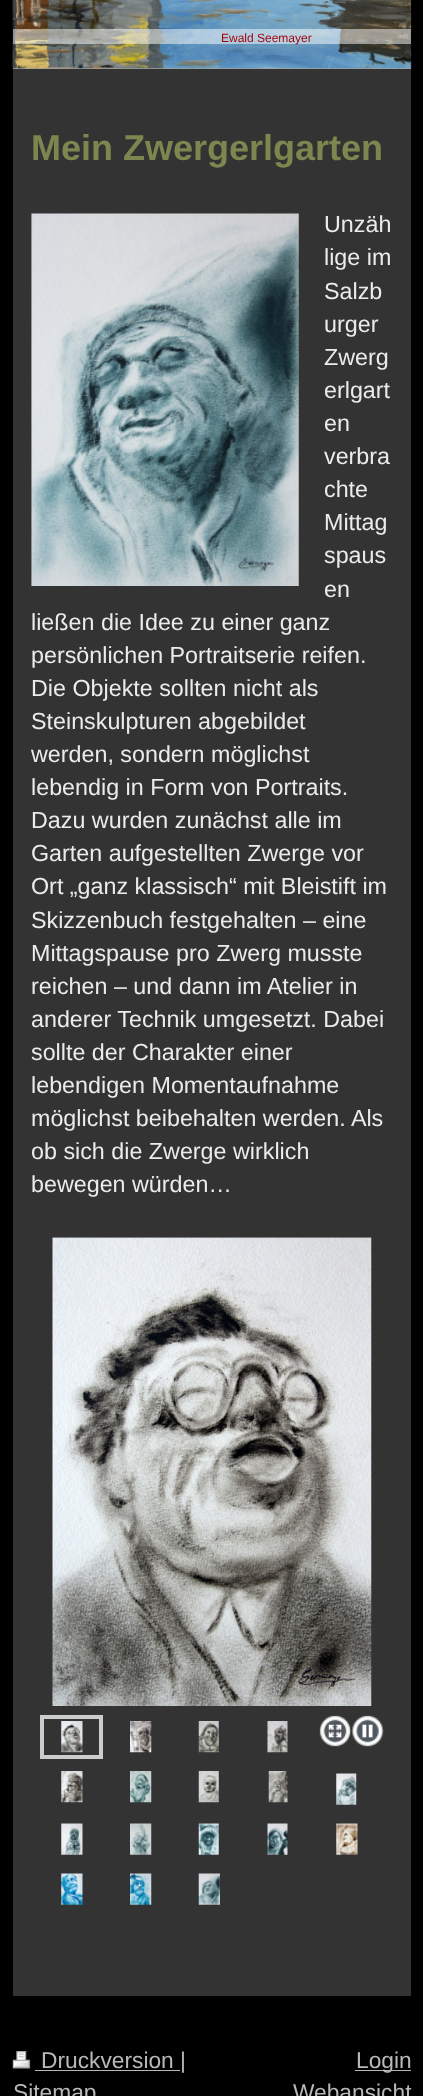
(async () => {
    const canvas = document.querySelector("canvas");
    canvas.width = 423;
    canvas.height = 2096;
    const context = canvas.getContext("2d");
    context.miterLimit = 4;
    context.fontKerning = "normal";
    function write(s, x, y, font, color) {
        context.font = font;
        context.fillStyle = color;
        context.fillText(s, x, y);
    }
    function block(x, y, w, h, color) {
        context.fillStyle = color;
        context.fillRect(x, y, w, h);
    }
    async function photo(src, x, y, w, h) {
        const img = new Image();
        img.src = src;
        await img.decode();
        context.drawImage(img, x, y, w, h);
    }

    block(0, 0, 423, 2096, "rgb(0, 0, 0)");
    await photo("media/1.png", 12, 0, 400, 69);
    block(13, 68, 398, 1, "rgb(160, 160, 160)");
    await photo("media/2.png", 12, 0, 400, 69);
    block(13, 29, 398, 15, "rgba(255, 255, 255, 0.5)");
    write("Ewald Seemayer", 221, 42, "12px Liberation Sans", "rgb(159, 4, 8)");
    block(13, 69, 398, 1927, "rgb(51, 51, 51)");
    write("Mein Zwergerlgarten", 31, 160, "bold 36px Liberation Sans", "rgb(126, 133, 78)");
    await photo("media/3.png", 31, 213, 268, 373);
    write("Unzäh", 324, 232, "23.3px Liberation Sans", "rgb(235, 235, 235)");
    write("lige im", 324, 265, "23.3px Liberation Sans", "rgb(235, 235, 235)");
    write("Salzb", 324, 299, "23.3px Liberation Sans", "rgb(235, 235, 235)");
    write("urger", 324, 332, "23.3px Liberation Sans", "rgb(235, 235, 235)");
    write("Zwerg", 324, 365, "23.3px Liberation Sans", "rgb(235, 235, 235)");
    write("erlgart", 324, 398, "23.3px Liberation Sans", "rgb(235, 235, 235)");
    write("en", 324, 431, "23.3px Liberation Sans", "rgb(235, 235, 235)");
    write("verbra", 324, 464, "23.3px Liberation Sans", "rgb(235, 235, 235)");
    write("chte", 324, 497, "23.3px Liberation Sans", "rgb(235, 235, 235)");
    write("Mittag", 324, 530, "23.3px Liberation Sans", "rgb(235, 235, 235)");
    write("spaus", 324, 563, "23.3px Liberation Sans", "rgb(235, 235, 235)");
    write("en", 324, 597, "23.3px Liberation Sans", "rgb(235, 235, 235)");
    write("ließen die Idee zu einer ganz", 31, 630, "23.3px Liberation Sans", "rgb(235, 235, 235)");
    write("persönlichen Portraitserie reifen.", 31, 663, "23.3px Liberation Sans", "rgb(235, 235, 235)");
    write("Die Objekte sollten nicht als", 31, 696, "23.3px Liberation Sans", "rgb(235, 235, 235)");
    write("Steinskulpturen abgebildet", 31, 729, "23.3px Liberation Sans", "rgb(235, 235, 235)");
    write("werden, sondern möglichst", 31, 762, "23.3px Liberation Sans", "rgb(235, 235, 235)");
    write("lebendig in Form von Portraits.", 31, 795, "23.3px Liberation Sans", "rgb(235, 235, 235)");
    write("Dazu wurden zunächst alle im", 31, 828, "23.3px Liberation Sans", "rgb(235, 235, 235)");
    write("Garten aufgestellten Zwerge vor", 31, 861, "23.3px Liberation Sans", "rgb(235, 235, 235)");
    write("Ort „ganz klassisch“ mit Bleistift im", 31, 894, "23.3px Liberation Sans", "rgb(235, 235, 235)");
    write("Skizzenbuch festgehalten – eine", 31, 928, "23.3px Liberation Sans", "rgb(235, 235, 235)");
    write("Mittagspause pro Zwerg musste", 31, 961, "23.3px Liberation Sans", "rgb(235, 235, 235)");
    write("reichen – und dann im Atelier in", 31, 994, "23.3px Liberation Sans", "rgb(235, 235, 235)");
    write("anderer Technik umgesetzt. Dabei", 31, 1027, "23.3px Liberation Sans", "rgb(235, 235, 235)");
    write("sollte der Charakter einer", 31, 1060, "23.3px Liberation Sans", "rgb(235, 235, 235)");
    write("lebendigen Momentaufnahme", 31, 1093, "23.3px Liberation Sans", "rgb(235, 235, 235)");
    write("möglichst beibehalten werden. Als", 31, 1126, "23.3px Liberation Sans", "rgb(235, 235, 235)");
    write("ob sich die Zwerge wirklich", 31, 1159, "23.3px Liberation Sans", "rgb(235, 235, 235)");
    write("bewegen würden…", 31, 1192, "23.3px Liberation Sans", "rgb(235, 235, 235)");
    await photo("media/4.png", 52, 1237, 320, 469);
    context.strokeStyle = "rgb(204, 204, 204)";
    context.lineWidth = 4;
    context.strokeRect(42, 1717, 59, 40);
    await photo("media/5.png", 61, 1721, 22, 32);
    await photo("media/6.png", 130, 1721, 22, 32);
    await photo("media/7.png", 198, 1721, 21, 32);
    await photo("media/8.png", 267, 1721, 21, 32);
    await photo("media/9.png", 319, 1715, 33, 32);
    await photo("media/10.png", 352, 1715, 32, 32);
    await photo("media/11.png", 61, 1771, 22, 32);
    await photo("media/12.png", 130, 1771, 22, 32);
    await photo("media/13.png", 198, 1771, 21, 32);
    await photo("media/14.png", 268, 1771, 20, 32);
    await photo("media/15.png", 336, 1773, 21, 32);
    await photo("media/16.png", 61, 1823, 22, 32);
    await photo("media/17.png", 130, 1823, 22, 32);
    await photo("media/18.png", 198, 1823, 21, 32);
    await photo("media/19.png", 267, 1823, 21, 32);
    await photo("media/20.png", 336, 1823, 22, 32);
    await photo("media/21.png", 61, 1873, 22, 32);
    await photo("media/22.png", 130, 1873, 22, 32);
    await photo("media/23.png", 198, 1873, 22, 32);
    await photo("media/24.png", 12, 2051, 19, 18);
    block(35, 2070, 145, 1, "rgb(184, 184, 184)");
    write("Druckversion |", 41, 2068, "22.75px Liberation Sans", "rgb(184, 184, 184)");
    write("Sitemap", 13, 2100, "22.75px Liberation Sans", "rgb(184, 184, 184)");
    block(355, 2070, 56, 1, "rgb(184, 184, 184)");
    write("Login", 356, 2068, "22.75px Liberation Sans", "rgb(184, 184, 184)");
    write("Webansicht", 293, 2100, "22.75px Liberation Sans", "rgb(184, 184, 184)");
})();
